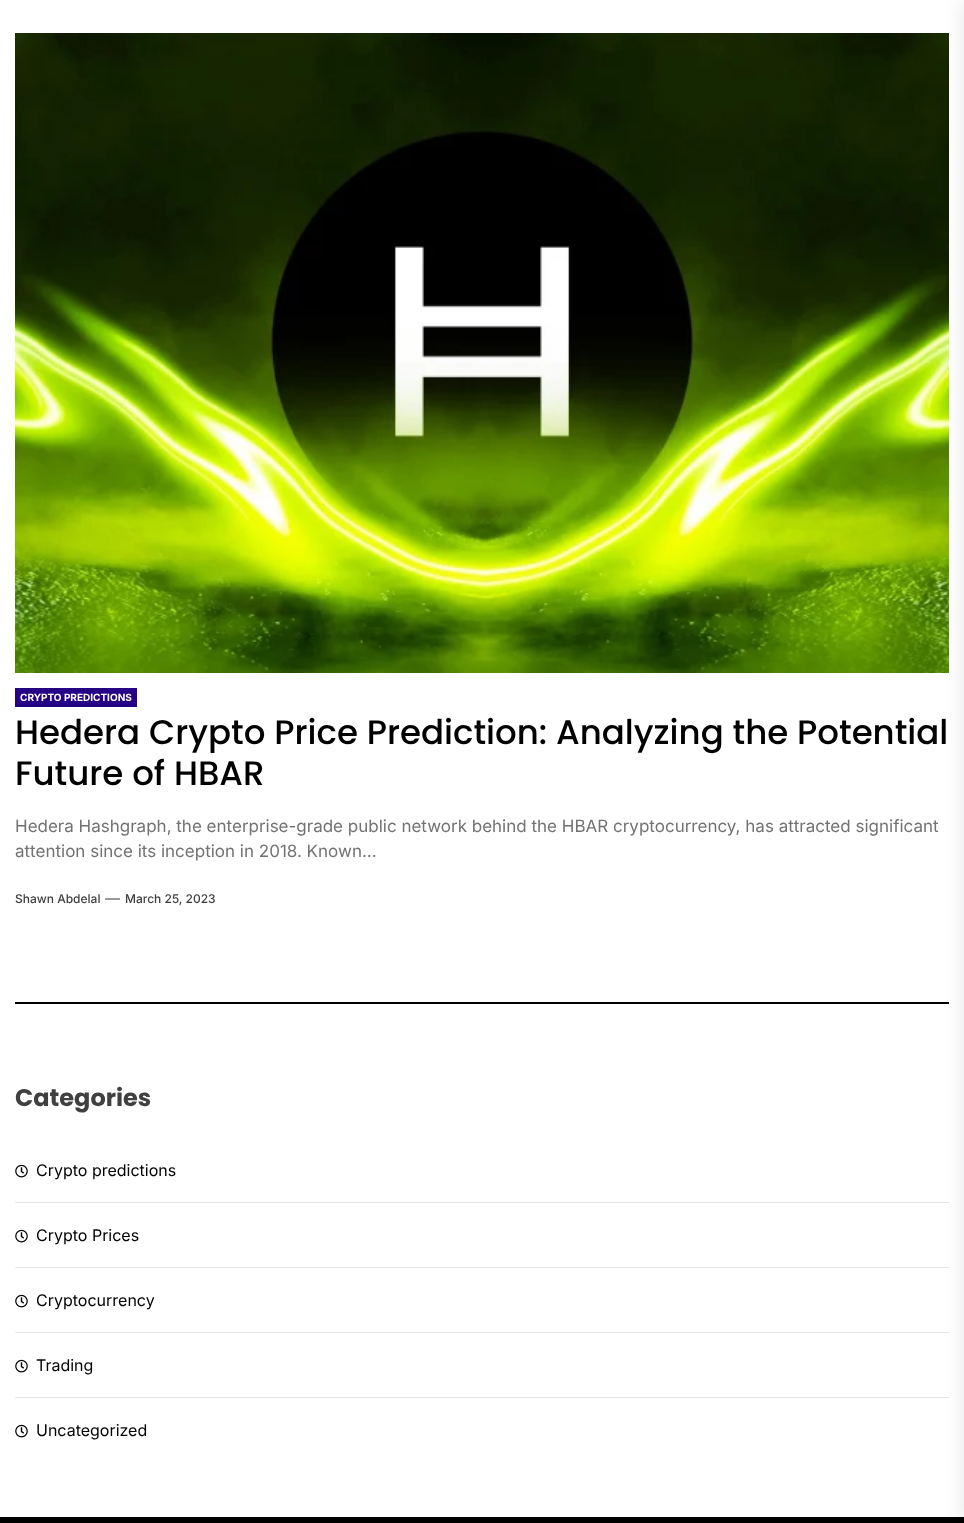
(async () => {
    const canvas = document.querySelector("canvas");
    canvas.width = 964;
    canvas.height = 1523;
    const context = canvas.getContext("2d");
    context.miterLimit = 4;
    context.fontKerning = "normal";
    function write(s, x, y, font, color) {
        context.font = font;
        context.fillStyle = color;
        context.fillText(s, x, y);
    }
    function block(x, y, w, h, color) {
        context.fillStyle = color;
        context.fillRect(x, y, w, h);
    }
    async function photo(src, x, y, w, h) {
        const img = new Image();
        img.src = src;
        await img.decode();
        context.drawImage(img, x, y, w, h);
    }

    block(0, 0, 964, 1523, "rgb(255, 255, 255)");
    await photo("media/1.png", 15, 33, 934, 640);
    block(15, 688, 122, 19, "rgb(38, 0, 133)");
    write("CRYPTO PREDICTIONS", 20, 701, "bold 10px Inter", "rgb(255, 255, 255)");
    write("Hedera Crypto Price Prediction: Analyzing the Potential", 15, 744, "500 34px Poppins", "rgb(0, 0, 0)");
    write("Future of HBAR", 15, 785, "500 34px Poppins", "rgb(0, 0, 0)");
    write("Hedera Hashgraph, the enterprise-grade public network behind the HBAR cryptocurrency, has attracted significant", 15, 832, "17px Inter", "rgb(114, 114, 114)");
    write("attention since its inception in 2018. Known...", 15, 857, "17px Inter", "rgb(114, 114, 114)");
    write("Shawn Abdelal", 15, 903, "500 12px Inter", "rgb(64, 64, 64)");
    block(105, 898, 15, 2, "rgb(153, 153, 153)");
    write("March 25, 2023", 125, 903, "500 12px Inter", "rgb(64, 64, 64)");
    block(15, 1002, 934, 2, "rgb(0, 0, 0)");
    write("Categories", 15, 1106, "bold 24px Poppins", "rgb(64, 64, 64)");
    block(15, 1202, 934, 1, "rgb(230, 230, 230)");
    await photo("media/2.png", 15, 1164, 13, 14);
    write("Crypto predictions", 36, 1176, "16px Inter", "rgb(0, 0, 0)");
    block(15, 1267, 934, 1, "rgb(230, 230, 230)");
    await photo("media/2.png", 15, 1229, 13, 14);
    write("Crypto Prices", 36, 1241, "16px Inter", "rgb(0, 0, 0)");
    block(15, 1332, 934, 1, "rgb(230, 230, 230)");
    await photo("media/2.png", 15, 1294, 13, 14);
    write("Cryptocurrency", 36, 1306, "16px Inter", "rgb(0, 0, 0)");
    block(15, 1397, 934, 1, "rgb(230, 230, 230)");
    await photo("media/2.png", 15, 1359, 13, 14);
    write("Trading", 36, 1371, "16px Inter", "rgb(0, 0, 0)");
    await photo("media/2.png", 15, 1424, 13, 14);
    write("Uncategorized", 36, 1436, "16px Inter", "rgb(0, 0, 0)");
    block(0, 1517, 964, 6, "rgb(0, 0, 0)");
    context.fillStyle = "rgba(0, 0, 0, 0.1)";
    context.filter = "blur(10px)";
    context.beginPath();
    context.rect(964, 0, 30, 1523);
    context.fill();
    context.filter = "none";
})();
